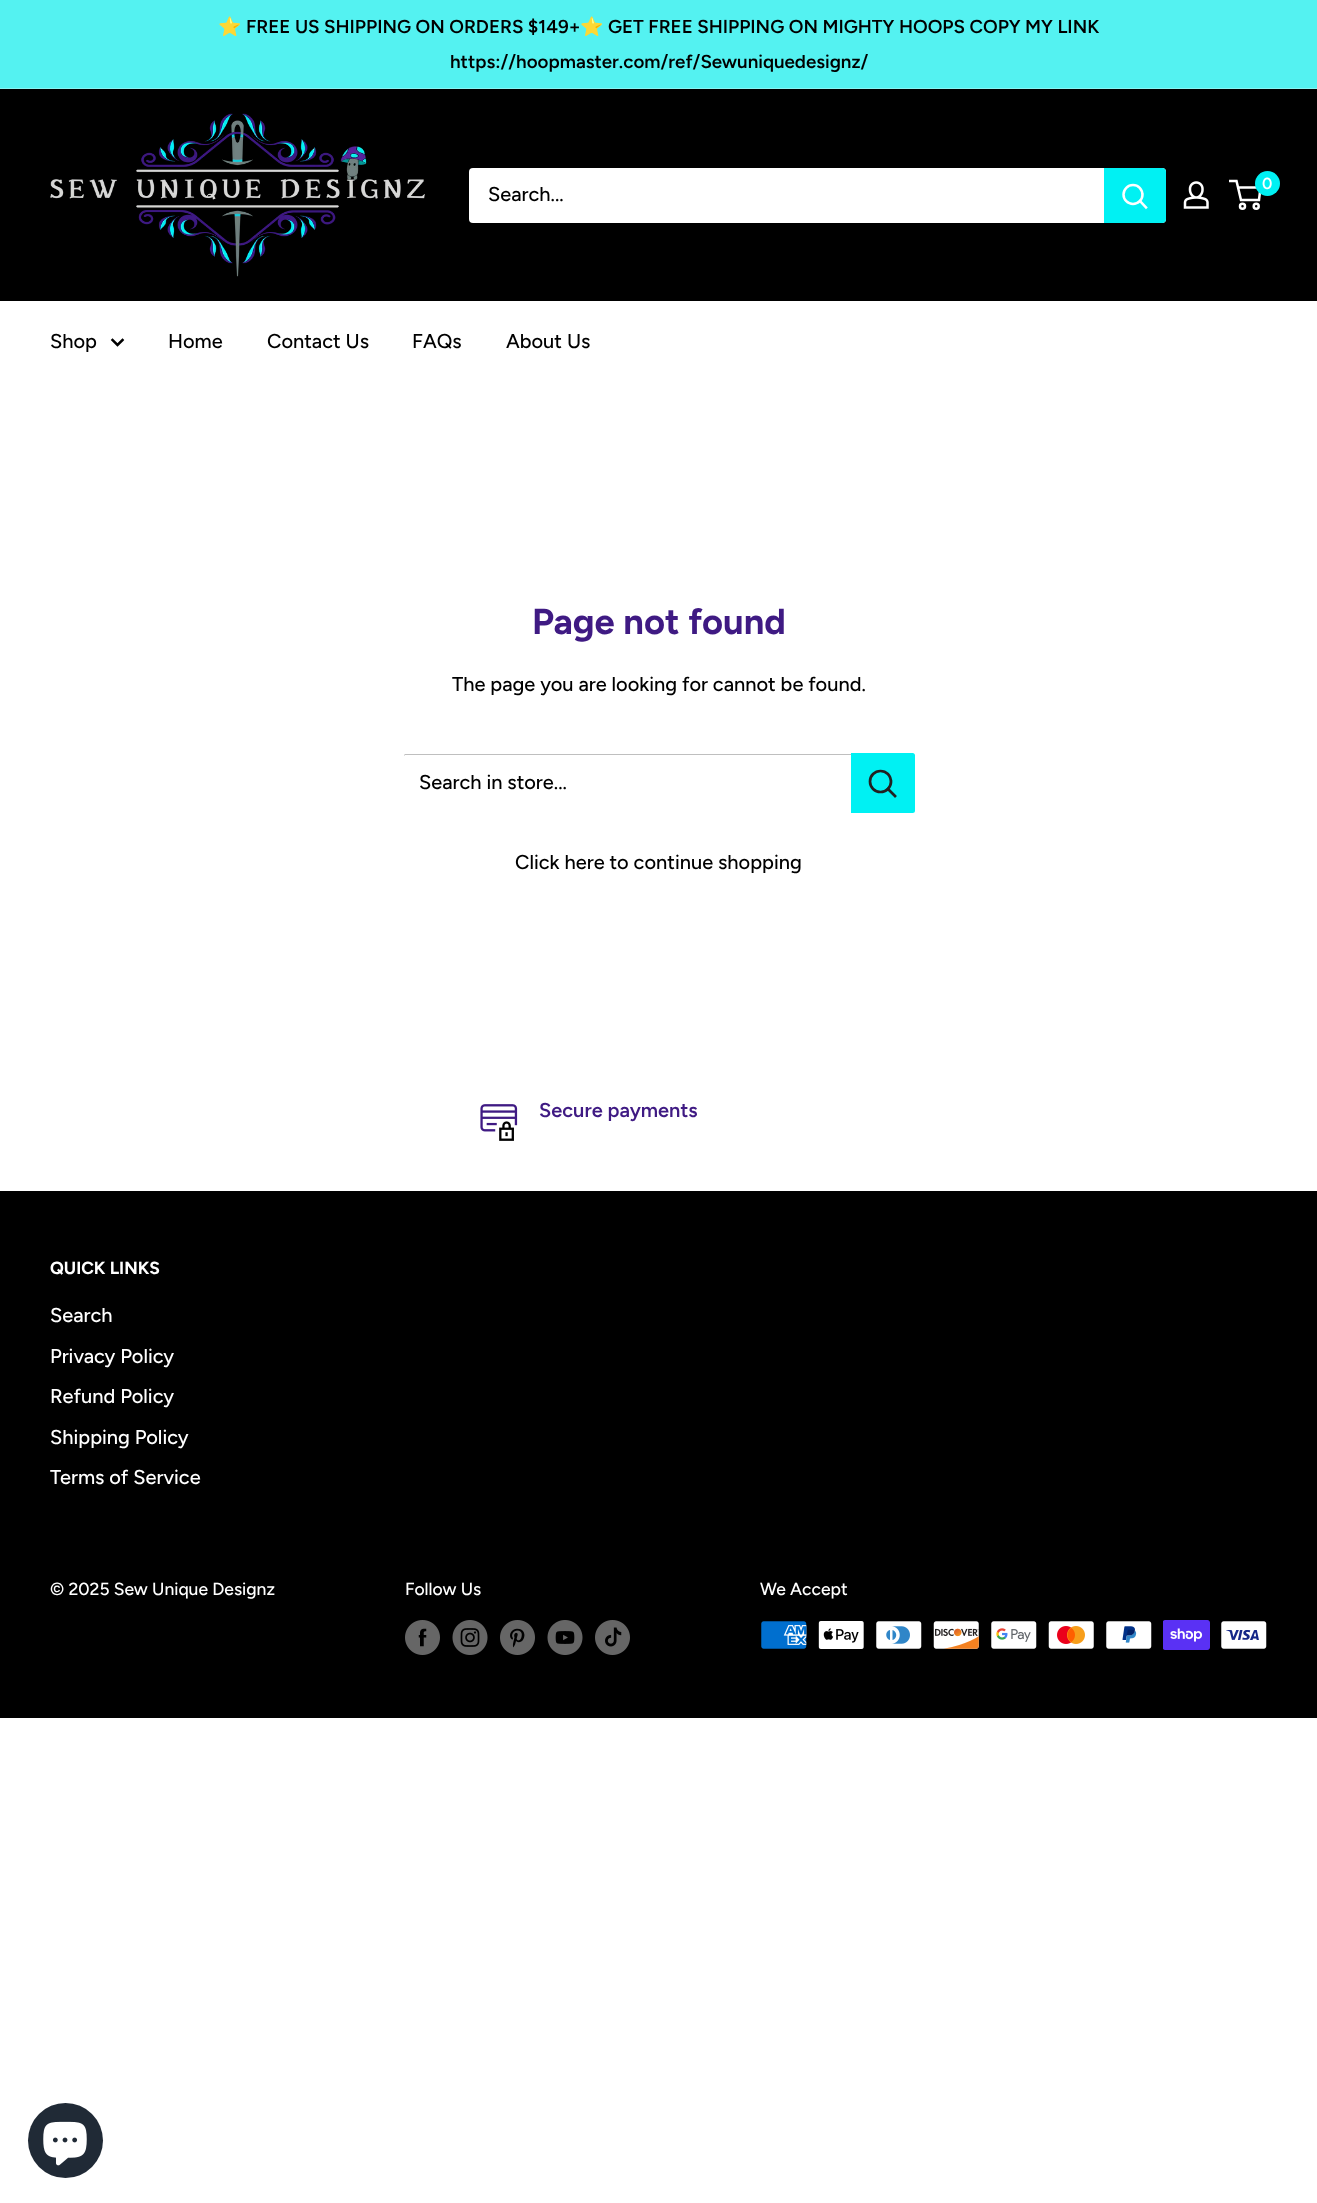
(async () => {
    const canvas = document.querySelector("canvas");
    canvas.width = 1317;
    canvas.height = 2203;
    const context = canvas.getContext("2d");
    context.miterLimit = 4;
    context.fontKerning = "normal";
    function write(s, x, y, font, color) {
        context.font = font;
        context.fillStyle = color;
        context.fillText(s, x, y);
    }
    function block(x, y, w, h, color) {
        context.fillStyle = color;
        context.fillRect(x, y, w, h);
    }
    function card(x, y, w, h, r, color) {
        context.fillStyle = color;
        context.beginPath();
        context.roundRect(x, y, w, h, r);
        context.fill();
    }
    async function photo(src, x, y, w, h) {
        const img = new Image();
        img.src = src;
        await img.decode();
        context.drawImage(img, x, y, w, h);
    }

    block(0, 0, 1317, 2203, "rgb(255, 255, 255)");
    block(0, 0, 1317, 88, "rgb(84, 242, 241)");
    block(0, 88, 1317, 1, "rgb(135, 246, 245)");
    write("⭐️", 218, 33, "bold 18.75px Noto Color Emoji", "rgb(0, 0, 0)");
    write("FREE US SHIPPING ON ORDERS $149+", 246, 33, "600 18.75px Figtree", "rgb(0, 0, 0)");
    write("⭐️", 580, 33, "bold 18.75px Noto Color Emoji", "rgb(0, 0, 0)");
    write("GET FREE SHIPPING ON MIGHTY HOOPS COPY MY LINK", 608, 33, "600 18.75px Figtree", "rgb(0, 0, 0)");
    write("https://hoopmaster.com/ref/Sewuniquedesignz/", 450, 68, "600 18.75px Figtree", "rgb(0, 0, 0)");
    block(0, 89, 1317, 212, "rgb(0, 0, 0)");
    await photo("media/1.png", 50, 113, 375, 164);
    await photo("media/2.png", 1183, 181, 26, 28);
    context.beginPath();
    context.arc(1242.5, 206.2, 2.5, 0, Math.PI * 2);
    context.strokeStyle = "rgb(255, 255, 255)";
    context.lineWidth = 2.5;
    context.stroke();
    context.beginPath();
    context.arc(1256.2, 206.2, 2.5, 0, Math.PI * 2);
    context.stroke();
    context.beginPath();
    context.moveTo(1238, 187.5);
    context.lineTo(1260.5, 187.5);
    context.lineTo(1259, 200);
    context.lineTo(1241, 200);
    context.lineTo(1236.5, 181);
    context.lineTo(1229, 181);
    context.stroke();
    context.fillStyle = "rgb(0, 241, 243)";
    context.beginPath();
    context.arc(1267.5, 183.5, 12.5, 0, Math.PI * 2);
    context.fill();
    write("0", 1262, 189, "600 16px Figtree", "rgb(255, 255, 255)");
    card(469, 168, 697, 55, 4, "rgb(255, 255, 255)");
    write("Search...", 488, 201, "500 20px Figtree", "rgb(0, 0, 0)");
    context.fillStyle = "rgb(0, 241, 243)";
    context.beginPath();
    context.roundRect(1104, 168, 62, 55, [0, 4, 4, 0]);
    context.fill();
    context.beginPath();
    context.moveTo(1146, 207.5);
    context.lineTo(1140, 201);
    context.lineCap = "square";
    context.stroke();
    context.beginPath();
    context.arc(1133, 194.5, 9.5, 0, Math.PI * 2);
    context.stroke();
    write("Shop", 50, 348, "500 20px Figtree", "rgb(0, 0, 0)");
    context.beginPath();
    context.moveTo(122.5, 340);
    context.lineTo(117.5, 345);
    context.lineTo(112.5, 340);
    context.strokeStyle = "rgb(0, 0, 0)";
    context.stroke();
    write("Home", 168, 348, "500 20px Figtree", "rgb(0, 0, 0)");
    write("Contact Us", 267, 348, "500 20px Figtree", "rgb(0, 0, 0)");
    write("FAQs", 412, 348, "500 20px Figtree", "rgb(0, 0, 0)");
    write("About Us", 506, 348, "500 20px Figtree", "rgb(0, 0, 0)");
    write("Page not found", 532, 634, "bold 36.25px Figtree", "rgb(63, 26, 131)");
    write("The page you are looking for cannot be found.", 452, 691, "500 20px Figtree", "rgb(0, 0, 0)");
    context.fillStyle = "rgb(191, 191, 191)";
    context.beginPath();
    context.moveTo(405, 755);
    context.lineTo(851, 755);
    context.lineTo(851, 754);
    context.lineTo(405, 754);
    context.lineTo(404, 755);
    context.lineTo(404, 756);
    context.closePath();
    context.fill();
    write("Search in store...", 419, 789, "500 20px Figtree", "rgb(0, 0, 0)");
    context.fillStyle = "rgb(0, 241, 243)";
    context.beginPath();
    context.roundRect(851, 753, 64, 60, [0, 2.5, 2.5, 0]);
    context.fill();
    context.beginPath();
    context.moveTo(895, 796);
    context.lineTo(888, 789);
    context.strokeStyle = "rgb(34, 32, 33)";
    context.lineWidth = 2.7;
    context.stroke();
    context.beginPath();
    context.arc(880.5, 781.5, 10.5, 0, Math.PI * 2);
    context.stroke();
    write("Click here to continue shopping", 515, 869, "500 20px Figtree", "rgb(0, 0, 0)");
    await photo("media/3.png", 480, 1104, 38, 37);
    write("Secure payments", 539, 1117, "600 20px Figtree", "rgb(63, 26, 131)");
    block(0, 1191, 1317, 527, "rgb(0, 0, 0)");
    write("QUICK LINKS", 50, 1274, "bold 17.5px Figtree", "rgb(255, 255, 255)");
    write("Search", 50, 1322, "500 20px Figtree", "rgb(255, 255, 255)");
    write("Privacy Policy", 50, 1363, "500 20px Figtree", "rgb(255, 255, 255)");
    write("Refund Policy", 50, 1403, "500 20px Figtree", "rgb(255, 255, 255)");
    write("Shipping Policy", 50, 1444, "500 20px Figtree", "rgb(255, 255, 255)");
    write("Terms of Service", 50, 1484, "500 20px Figtree", "rgb(255, 255, 255)");
    write("© 2025 Sew Unique Designz", 50, 1595, "500 17.5px Figtree", "rgb(255, 255, 255)");
    write("Follow Us", 405, 1595, "500 17.5px Figtree", "rgb(255, 255, 255)");
    await photo("media/4.png", 405, 1620, 35, 35);
    await photo("media/5.png", 452, 1620, 36, 35);
    await photo("media/6.png", 500, 1620, 35, 35);
    await photo("media/7.png", 547, 1620, 36, 35);
    await photo("media/8.png", 595, 1620, 35, 35);
    write("We Accept", 760, 1595, "500 17.5px Figtree", "rgb(255, 255, 255)");
    await photo("media/9.png", 761, 1621, 46, 28);
    await photo("media/10.png", 818, 1621, 46, 28);
    await photo("media/11.png", 876, 1621, 46, 28);
    await photo("media/12.png", 933, 1621, 46, 28);
    await photo("media/13.png", 991, 1621, 46, 28);
    await photo("media/14.png", 1048, 1621, 46, 28);
    await photo("media/15.png", 1106, 1621, 46, 28);
    await photo("media/16.png", 1163, 1620, 47, 30);
    await photo("media/17.png", 1221, 1621, 46, 28);
    context.fillStyle = "rgb(32, 42, 54)";
    context.beginPath();
    context.arc(65.5, 2140.5, 37.5, 0, Math.PI * 2);
    context.fill();
    await photo("media/18.png", 43, 2121, 44, 45);
})();
